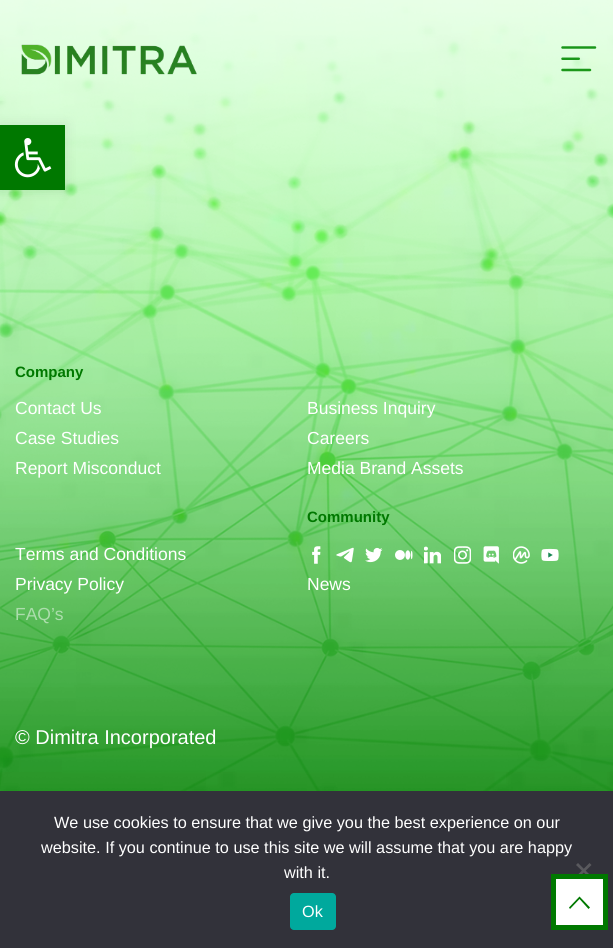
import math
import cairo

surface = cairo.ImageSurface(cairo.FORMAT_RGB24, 613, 948)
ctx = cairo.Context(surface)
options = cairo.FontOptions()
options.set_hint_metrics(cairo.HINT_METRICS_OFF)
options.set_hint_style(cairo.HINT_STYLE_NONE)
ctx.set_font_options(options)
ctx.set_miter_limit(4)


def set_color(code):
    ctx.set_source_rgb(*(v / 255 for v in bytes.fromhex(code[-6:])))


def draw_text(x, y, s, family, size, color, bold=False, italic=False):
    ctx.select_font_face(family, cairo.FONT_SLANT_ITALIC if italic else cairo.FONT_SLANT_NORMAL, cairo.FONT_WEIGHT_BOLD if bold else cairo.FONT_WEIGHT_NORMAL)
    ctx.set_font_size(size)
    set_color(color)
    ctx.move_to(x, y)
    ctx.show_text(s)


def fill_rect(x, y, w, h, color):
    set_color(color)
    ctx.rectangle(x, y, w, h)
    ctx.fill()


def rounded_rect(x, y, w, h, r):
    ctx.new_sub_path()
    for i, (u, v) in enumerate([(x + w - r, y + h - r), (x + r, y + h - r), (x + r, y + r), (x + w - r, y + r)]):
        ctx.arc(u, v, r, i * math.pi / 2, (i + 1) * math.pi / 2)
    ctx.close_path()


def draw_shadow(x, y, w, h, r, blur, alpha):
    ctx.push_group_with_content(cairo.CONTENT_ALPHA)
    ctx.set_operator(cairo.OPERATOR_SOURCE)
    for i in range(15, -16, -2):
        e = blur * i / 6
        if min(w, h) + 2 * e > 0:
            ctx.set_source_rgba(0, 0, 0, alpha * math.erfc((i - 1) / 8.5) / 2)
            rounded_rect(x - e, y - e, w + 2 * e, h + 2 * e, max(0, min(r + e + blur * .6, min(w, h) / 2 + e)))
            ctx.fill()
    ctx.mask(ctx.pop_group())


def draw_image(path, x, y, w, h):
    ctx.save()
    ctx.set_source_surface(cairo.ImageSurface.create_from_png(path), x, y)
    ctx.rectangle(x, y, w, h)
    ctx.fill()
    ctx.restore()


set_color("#ffffff")
ctx.paint()
draw_image("assets/img1.png", 21, 44, 176, 31)
draw_image("assets/img2.png", 561, 46, 36, 26)
draw_image("assets/img4.png", 0, 0, 613, 791)
set_color("#000000")
draw_shadow(0, 125, 65, 65, 0, 6, 0.1)
fill_rect(0, 125, 65, 65, "#007800")
draw_image("assets/img3.png", 14, 138, 38, 40)
draw_text(15, 377, "Company", "Liberation Sans", 15, "#007800", bold=True)
draw_text(15, 414, "Contact Us", "Liberation Sans", 17.5, "#ffffff")
draw_text(15, 444, "Case Studies", "Liberation Sans", 17.5, "#ffffff")
draw_text(15, 474, "Report Misconduct", "Liberation Sans", 17.5, "#ffffff")
draw_text(307, 414, "Business Inquiry", "Liberation Sans", 17.5, "#ffffff")
draw_text(307, 444, "Careers", "Liberation Sans", 17.5, "#ffffff")
draw_text(307, 474, "Media Brand Assets", "Liberation Sans", 17.5, "#ffffff")
draw_text(15, 560, "Terms and Conditions", "Liberation Sans", 17.5, "#ffffff")
draw_text(15, 590, "Privacy Policy", "Liberation Sans", 17.5, "#ffffff")
draw_text(15, 620, "FAQ’s", "Liberation Sans", 17.5, "#acddac")
draw_text(307, 522, "Community", "Liberation Sans", 15, "#007800", bold=True)
draw_image("assets/img5.png", 312, 546, 9, 18)
draw_image("assets/img6.png", 336, 547, 18, 16)
draw_image("assets/img7.png", 365, 547, 18, 16)
draw_image("assets/img8.png", 395, 550, 18, 10)
draw_image("assets/img9.png", 424, 546, 17, 18)
draw_image("assets/img10.png", 454, 546, 17, 18)
draw_image("assets/img11.png", 483, 546, 16, 18)
draw_image("assets/img12.png", 513, 546, 17, 18)
draw_image("assets/img13.png", 541, 548, 18, 13)
draw_text(307, 590, "News", "Liberation Sans", 17.5, "#ffffff")
draw_text(15, 744, "© Dimitra Incorporated", "Liberation Sans", 20, "#ffffff")
fill_rect(0, 791, 613, 157, "#32323a")
draw_text(54, 828, "We use cookies to ensure that we give you the best experience on our", "Liberation Sans", 16.25, "#ffffff")
draw_text(41, 853, "website. If you continue to use this site we will assume that you are happy", "Liberation Sans", 16.25, "#ffffff")
draw_text(284, 878, "with it.", "Liberation Sans", 16.25, "#ffffff")
set_color("#59595d")
ctx.new_path()
ctx.move_to(589.5, 863)
ctx.line_to(591.5, 865)
ctx.line_to(578, 878)
ctx.line_to(576, 876.5)
ctx.close_path()
ctx.fill()
ctx.new_path()
ctx.move_to(576, 865)
ctx.line_to(578, 863)
ctx.line_to(591.5, 876.5)
ctx.line_to(589.5, 878)
ctx.close_path()
ctx.fill()
set_color("#00a99d")
rounded_rect(290, 893, 46, 37, 4)
ctx.fill()
draw_text(302, 917, "Ok", "Liberation Sans", 16.25, "#ffffff")
ctx.rectangle(553.5, 876.5, 52, 51)
ctx.fill_preserve()
set_color("#007800")
ctx.set_line_width(5)
ctx.stroke()
ctx.new_path()
ctx.move_to(588.5, 909)
ctx.line_to(590, 907.5)
ctx.line_to(579.5, 896.5)
ctx.line_to(569, 907.5)
ctx.line_to(570, 909)
ctx.line_to(579.5, 899)
ctx.close_path()
ctx.fill()
surface.write_to_png("output.png")
